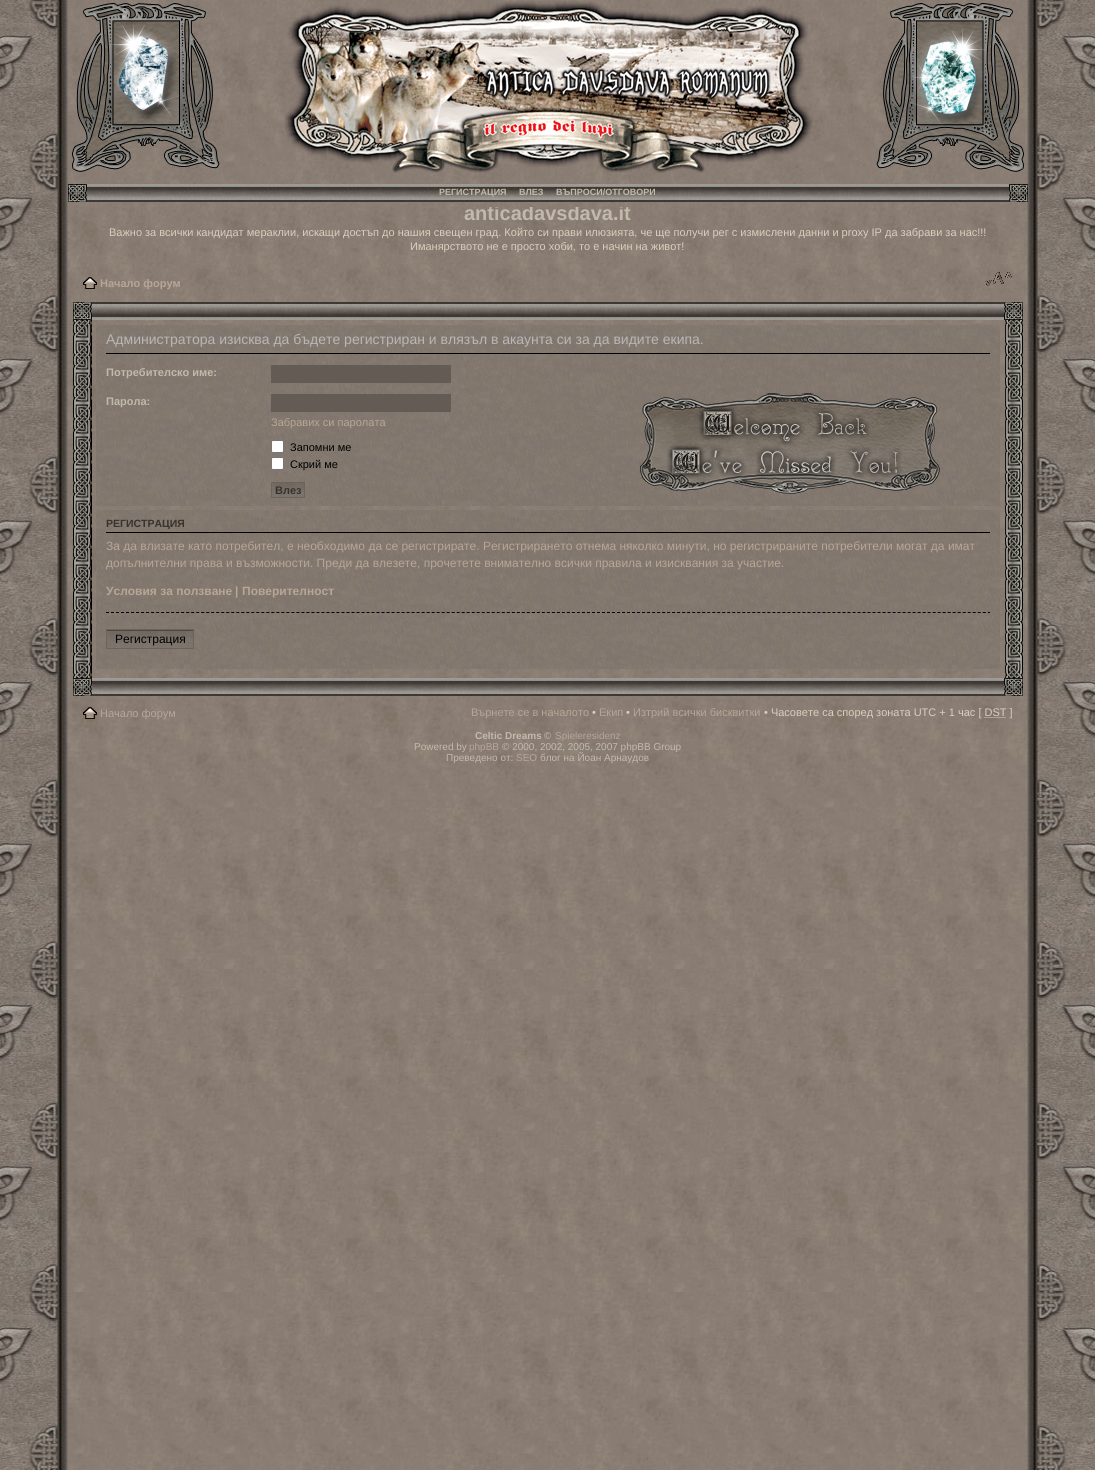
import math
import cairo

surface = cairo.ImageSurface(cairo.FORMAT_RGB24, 1095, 1470)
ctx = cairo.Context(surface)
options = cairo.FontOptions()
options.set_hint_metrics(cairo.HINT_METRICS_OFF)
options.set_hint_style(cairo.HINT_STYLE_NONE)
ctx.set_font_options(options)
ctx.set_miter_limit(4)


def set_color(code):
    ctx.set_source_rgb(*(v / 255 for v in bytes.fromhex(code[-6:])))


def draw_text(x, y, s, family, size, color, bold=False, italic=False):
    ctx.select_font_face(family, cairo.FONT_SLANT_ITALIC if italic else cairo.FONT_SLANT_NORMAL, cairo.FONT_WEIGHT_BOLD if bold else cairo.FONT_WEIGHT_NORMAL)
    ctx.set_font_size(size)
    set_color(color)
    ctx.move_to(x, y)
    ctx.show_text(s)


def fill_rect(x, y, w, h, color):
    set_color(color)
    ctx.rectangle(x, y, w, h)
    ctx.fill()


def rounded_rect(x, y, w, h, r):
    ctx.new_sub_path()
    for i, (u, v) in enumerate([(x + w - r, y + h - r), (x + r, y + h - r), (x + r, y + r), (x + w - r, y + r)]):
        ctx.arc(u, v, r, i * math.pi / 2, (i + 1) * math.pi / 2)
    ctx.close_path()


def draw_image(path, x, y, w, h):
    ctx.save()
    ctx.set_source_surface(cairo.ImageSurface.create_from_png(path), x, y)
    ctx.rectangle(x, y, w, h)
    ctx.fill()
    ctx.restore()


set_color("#ffffff")
ctx.paint()
draw_image("assets/img1.png", 0, 779, 1095, 691)
draw_image("assets/img2.png", 0, 0, 1095, 779)
draw_image("assets/img3.png", 72, 3, 148, 169)
draw_image("assets/img4.png", 284, 1, 529, 172)
draw_image("assets/img5.png", 876, 3, 148, 169)
draw_image("assets/img6.png", 68, 184, 960, 18)
draw_text(439, 195, "РЕГИСТРАЦИЯ", "Liberation Sans", 9, "#c1baaa", bold=True)
draw_text(519, 195, "ВЛЕЗ", "Liberation Sans", 9, "#c1baaa", bold=True)
draw_text(556, 195, "ВЪПРОСИ/ОТГОВОРИ", "Liberation Sans", 9, "#c1baaa", bold=True)
ctx.save()
ctx.rectangle(73, 207, 950, 561)
ctx.clip()
draw_text(464, 220, "anticadavsdava.it", "Liberation Sans", 20, "#c1baaa", bold=True)
ctx.restore()
draw_text(109, 236, "Важно за всички кандидат мераклии, искащи достъп до нашия свещен град. Който си прави илюзията, че ще получи рег с измислени данни и proxy IP да забрави за нас!!!", "Liberation Sans", 11, "#d8cfbc")
draw_text(410, 250, "Иманярството не е просто хоби, то е начин на живот!", "Liberation Sans", 11, "#d8cfbc")
draw_image("assets/img7.png", 83, 277, 14, 12)
draw_text(100, 287, "Начало форум", "Liberation Sans", 11, "#b7a696", bold=True)
draw_image("assets/img8.png", 985, 272, 27, 14)
draw_image("assets/img9.png", 73, 302, 19, 18)
draw_image("assets/img10.png", 92, 302, 912, 18)
draw_image("assets/img11.png", 1004, 302, 19, 18)
draw_image("assets/img12.png", 73, 320, 19, 358)
draw_image("assets/img13.png", 1005, 320, 18, 358)
draw_image("assets/img14.png", 96, 325, 904, 181)
fill_rect(106, 353, 884, 1, "#000000")
draw_text(106, 344, "Администратора изисква да бъдете регистриран и влязъл в акаунта си за да видите екипа.", "Liberation Sans", 14, "#b7b7b7")
draw_text(106, 376, "Потребителско име:", "Liberation Sans", 11, "#c1baaa", bold=True)
set_color("#645c54")
ctx.rectangle(271.5, 365.5, 179, 17)
ctx.fill_preserve()
set_color("#635c56")
ctx.set_line_width(1)
ctx.stroke()
draw_text(106, 405, "Парола:", "Liberation Sans", 11, "#c1baaa", bold=True)
set_color("#645c54")
ctx.rectangle(271.5, 394.5, 179, 17)
ctx.fill_preserve()
set_color("#635c56")
ctx.stroke()
draw_text(271, 426, "Забравих си паролата", "Liberation Sans", 11, "#b7a696")
set_color("#ffffff")
rounded_rect(271.5, 440.5, 12, 12, 1.5)
ctx.fill_preserve()
set_color("#767676")
ctx.stroke()
draw_text(290, 451, "Запомни ме", "Liberation Sans", 11, "#000000")
set_color("#ffffff")
rounded_rect(271.5, 457.5, 12, 12, 1.5)
ctx.fill_preserve()
set_color("#767676")
ctx.stroke()
draw_text(290, 468, "Скрий ме", "Liberation Sans", 11, "#000000")
draw_image("assets/img15.png", 272, 483, 32, 14)
ctx.rectangle(271.5, 482.5, 33, 15)
set_color("#6d6359")
ctx.stroke()
draw_text(275, 494, "Влез", "Liberation Sans", 11, "#38322e", bold=True)
draw_image("assets/img16.png", 640, 393, 300, 101)
draw_image("assets/img17.png", 96, 510, 904, 159)
fill_rect(106, 532, 884, 1, "#000000")
draw_text(106, 527, "РЕГИСТРАЦИЯ", "Liberation Sans", 10.5, "#38322e", bold=True)
draw_text(106, 550, "За да влизате като потребител, е необходимо да се регистрирате. Регистрирането отнема няколко минути, но регистрираните потребители могат да имат", "Liberation Sans", 12, "#b7a696")
ctx.save()
ctx.rectangle(106, 510, 884, 159)
ctx.clip()
draw_text(106, 567, "допълнителни права и възможности. Преди да влезете, прочетете внимателно всички правила и изисквания за участие.", "Liberation Sans", 12, "#b7a696")
ctx.restore()
draw_text(106, 595, "Условия за ползване", "Liberation Sans", 12, "#b7a696", bold=True)
draw_text(235, 595, "|", "Liberation Sans", 12, "#b7a696", bold=True)
draw_text(242, 595, "Поверителност", "Liberation Sans", 12, "#b7a696", bold=True)
ctx.new_path()
ctx.move_to(106, 612.5)
ctx.line_to(990, 612.5)
set_color("#000000")
ctx.set_dash([3, 2.01])
ctx.stroke()
draw_image("assets/img18.png", 107, 631, 86, 17)
fill_rect(107, 630, 86, 1, "#494949")
ctx.rectangle(106.5, 629.5, 87, 19)
set_color("#6d6359")
ctx.set_dash([])
ctx.stroke()
draw_text(115, 643, "Регистрация", "Liberation Sans", 12, "#000000")
draw_image("assets/img19.png", 73, 678, 19, 18)
draw_image("assets/img20.png", 92, 678, 912, 18)
draw_image("assets/img21.png", 1004, 678, 19, 18)
draw_image("assets/img22.png", 83, 707, 14, 12)
draw_text(100, 717, "Начало форум", "Liberation Sans", 11, "#b7a696")
draw_text(471, 716, "Върнете се в началото", "Liberation Sans", 11, "#b7a696")
draw_text(592, 716, "•", "Liberation Sans", 11, "#d8cfbc")
draw_text(599, 716, "Екип", "Liberation Sans", 11, "#b7a696")
draw_text(626, 716, "•", "Liberation Sans", 11, "#d8cfbc")
draw_text(633, 716, "Изтрий всички бисквитки", "Liberation Sans", 11, "#b7a696")
draw_text(764, 716, "• Часовете са според зоната UTC + 1 час [ DST ]", "Liberation Sans", 11, "#d8cfbc")
ctx.new_path()
ctx.move_to(984.5, 717.5)
ctx.line_to(1006.5, 717.5)
ctx.set_dash([1, 1])
ctx.stroke()
draw_text(475, 739, "Celtic Dreams", "Liberation Sans", 10, "#c1baaa", bold=True)
draw_text(544, 739, "©", "Liberation Sans", 10, "#c1baaa")
draw_text(555, 739, "Spieleresidenz", "Liberation Sans", 10, "#b7a696")
draw_text(414, 750, "Powered by", "Liberation Sans", 10, "#c1baaa")
draw_text(469, 750, "phpBB", "Liberation Sans", 10, "#b7a696")
draw_text(502, 750, "© 2000, 2002, 2005, 2007 phpBB Group", "Liberation Sans", 10, "#c1baaa")
draw_text(446, 761, "Преведено от:", "Liberation Sans", 10, "#c1baaa")
draw_text(516, 761, "SEO", "Liberation Sans", 10, "#b7a696")
draw_text(540, 761, "блог на Йоан Арнаудов", "Liberation Sans", 10, "#c1baaa")
surface.write_to_png("output.png")
